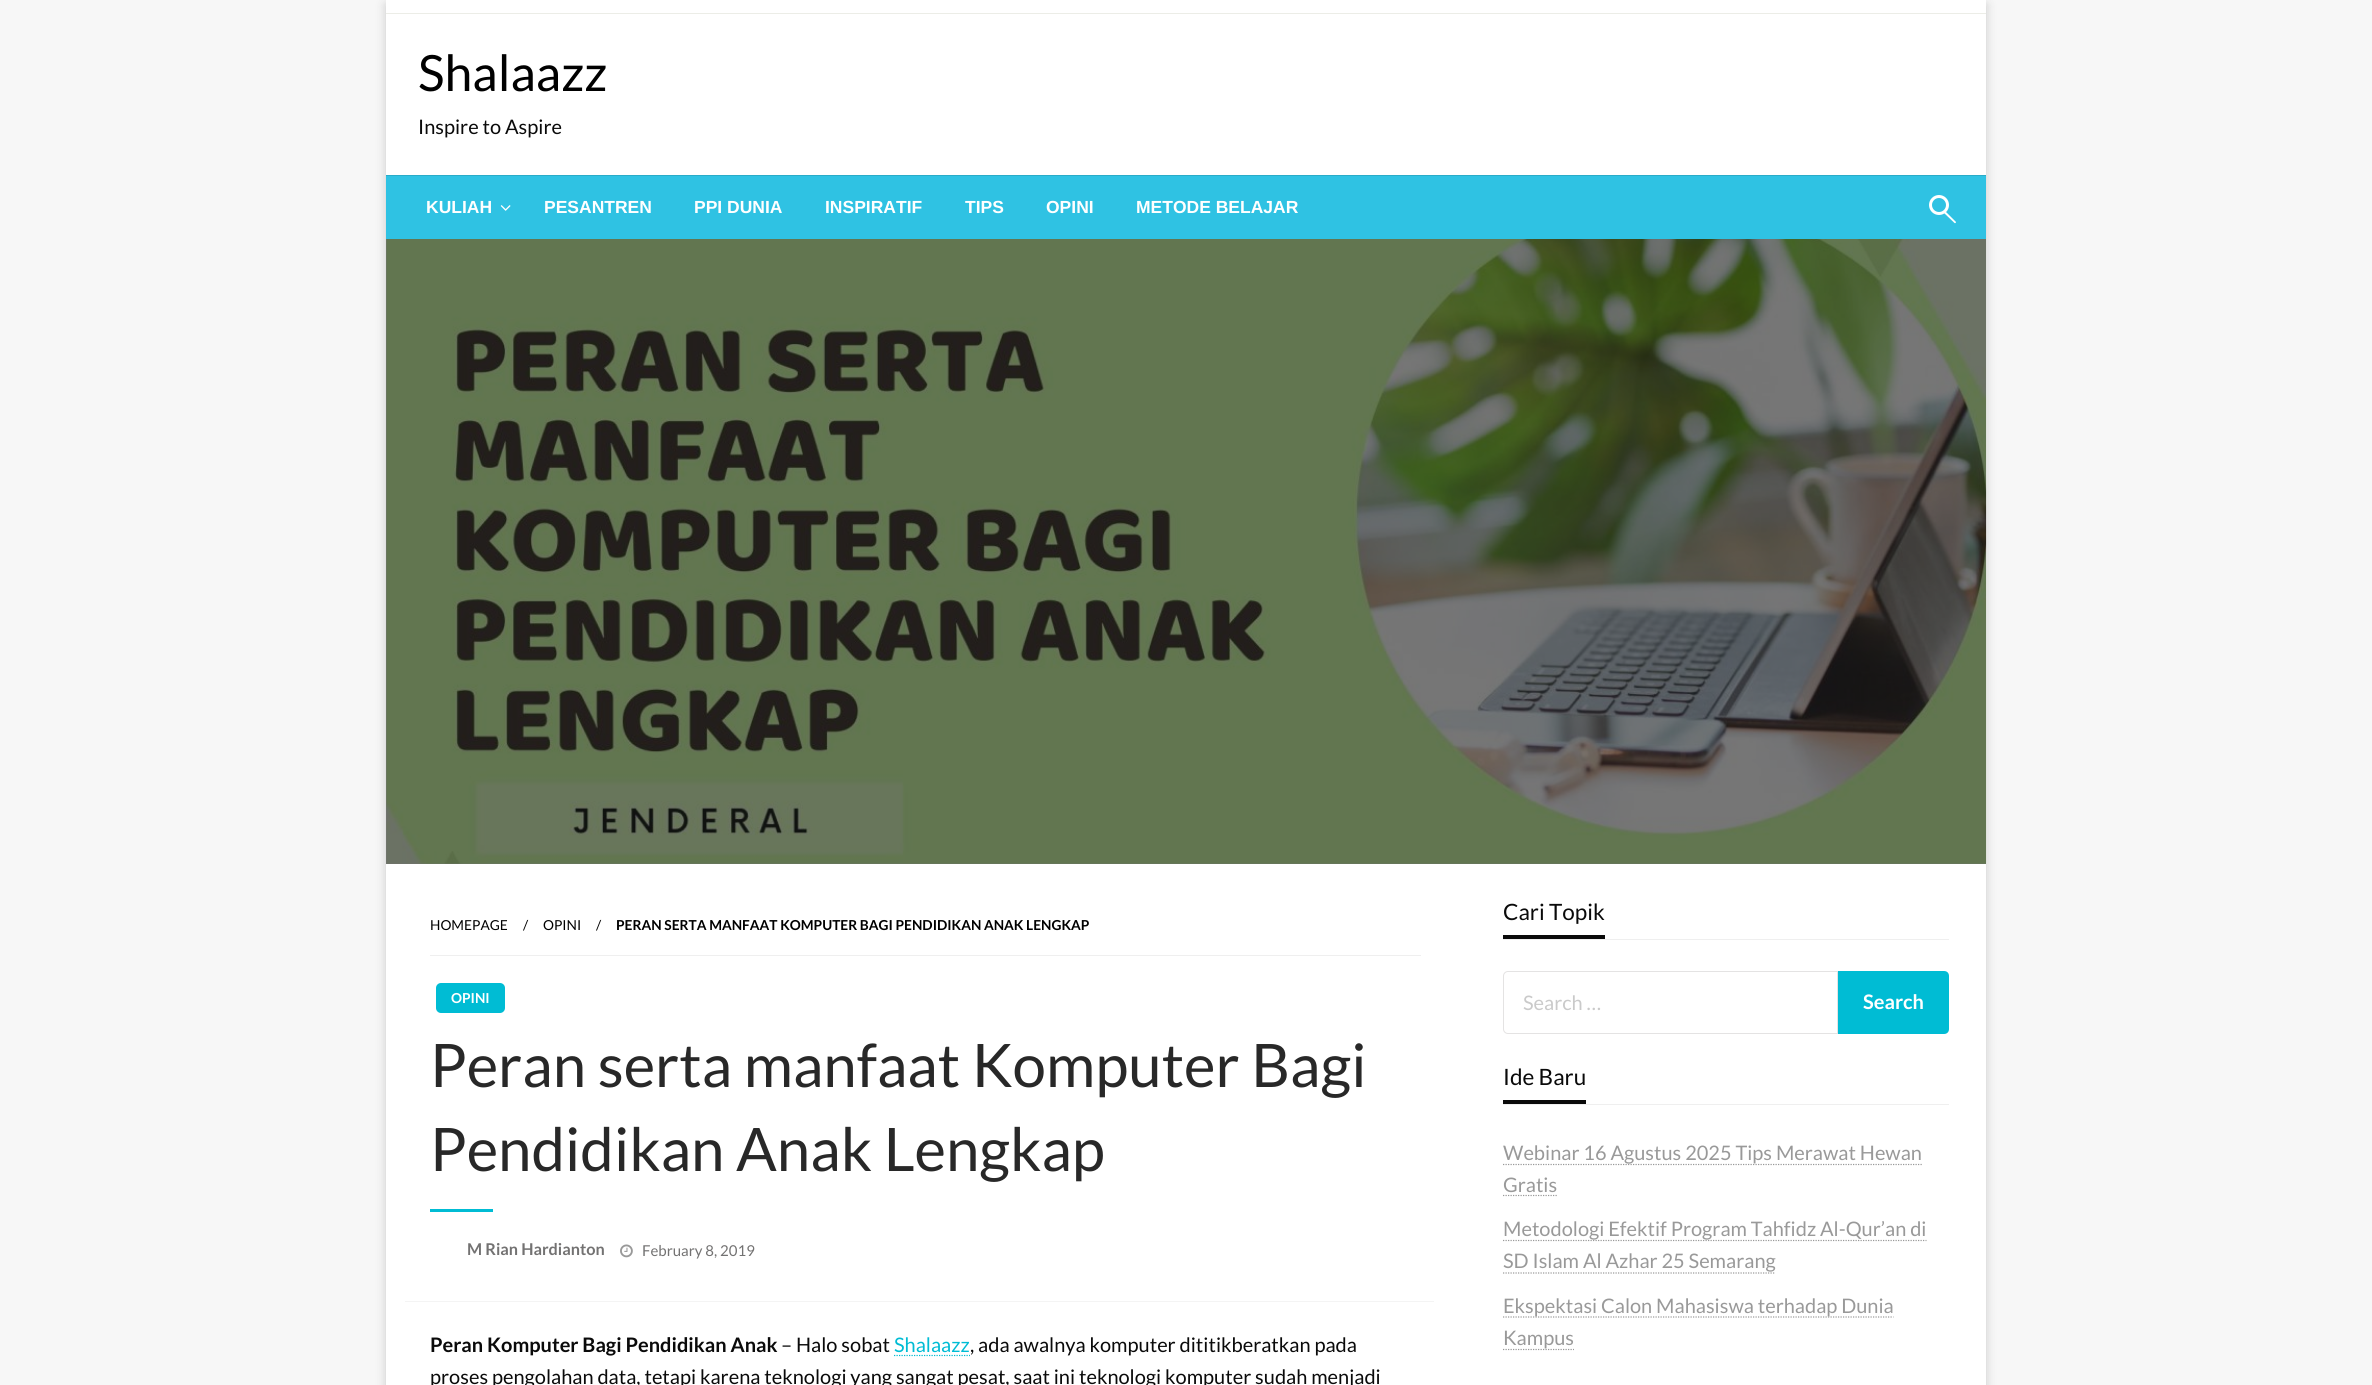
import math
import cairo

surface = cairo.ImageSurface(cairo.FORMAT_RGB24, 2372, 1385)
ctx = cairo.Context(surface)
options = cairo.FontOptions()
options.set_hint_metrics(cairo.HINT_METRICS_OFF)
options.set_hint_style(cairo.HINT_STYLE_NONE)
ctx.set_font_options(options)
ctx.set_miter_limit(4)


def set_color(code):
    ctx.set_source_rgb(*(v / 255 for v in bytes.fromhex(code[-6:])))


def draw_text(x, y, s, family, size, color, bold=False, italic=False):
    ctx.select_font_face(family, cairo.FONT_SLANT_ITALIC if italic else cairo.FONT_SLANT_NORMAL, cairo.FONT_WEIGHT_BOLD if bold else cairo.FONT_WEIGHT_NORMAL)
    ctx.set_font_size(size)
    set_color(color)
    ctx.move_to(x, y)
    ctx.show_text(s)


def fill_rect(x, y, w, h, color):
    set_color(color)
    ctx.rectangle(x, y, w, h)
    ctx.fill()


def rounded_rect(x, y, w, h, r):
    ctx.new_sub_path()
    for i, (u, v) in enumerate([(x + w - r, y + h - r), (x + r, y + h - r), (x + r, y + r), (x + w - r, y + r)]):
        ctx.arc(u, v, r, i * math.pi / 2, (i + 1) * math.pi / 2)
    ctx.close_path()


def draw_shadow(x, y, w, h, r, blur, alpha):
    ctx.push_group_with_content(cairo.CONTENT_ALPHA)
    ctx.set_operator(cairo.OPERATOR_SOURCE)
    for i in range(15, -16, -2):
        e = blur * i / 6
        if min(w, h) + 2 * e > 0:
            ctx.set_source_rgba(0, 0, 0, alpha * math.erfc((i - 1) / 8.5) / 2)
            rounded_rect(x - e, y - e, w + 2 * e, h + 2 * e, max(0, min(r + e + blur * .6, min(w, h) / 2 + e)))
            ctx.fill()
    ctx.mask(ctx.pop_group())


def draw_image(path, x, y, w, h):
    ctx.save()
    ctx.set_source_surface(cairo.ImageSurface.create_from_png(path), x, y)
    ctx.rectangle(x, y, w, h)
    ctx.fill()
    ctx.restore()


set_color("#f7f7f7")
ctx.paint()
set_color("#000000")
draw_shadow(386, 4, 1600, 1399, 0, 6, 0.09)
draw_shadow(386, 5, 1600, 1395, 0, 5, 0.1)
fill_rect(386, 0, 1600, 13, "#ffffff")
fill_rect(386, 13, 1600, 1, "#ecede7")
fill_rect(386, 14, 1600, 161, "#ffffff")
draw_text(418, 91, "Shalaazz", "Lato", 50, "#000000")
draw_text(418, 134, "Inspire to Aspire", "Lato", 20, "#0a0a0a")
fill_rect(386, 176, 1600, 63, "#2fc2e3")
fill_rect(386, 175, 1600, 1, "#29abc8")
draw_text(426, 213, "KULIAH", "Liberation Sans", 17.5, "#ffffff", bold=True)
draw_image("assets/img1.png", 500, 205, 11, 6)
draw_text(544, 213, "PESANTREN", "Liberation Sans", 17.5, "#ffffff", bold=True)
draw_text(694, 213, "PPI DUNIA", "Liberation Sans", 17.5, "#ffffff", bold=True)
draw_text(825, 213, "INSPIRATIF", "Liberation Sans", 17.5, "#ffffff", bold=True)
draw_text(965, 213, "TIPS", "Liberation Sans", 17.5, "#ffffff", bold=True)
draw_text(1046, 213, "OPINI", "Liberation Sans", 17.5, "#ffffff", bold=True)
draw_text(1136, 213, "METODE BELAJAR", "Liberation Sans", 17.5, "#ffffff", bold=True)
ctx.new_path()
ctx.arc(1939, 205, 8.5, 0, 2 * math.pi)
ctx.set_line_width(3)
ctx.stroke()
ctx.new_path()
ctx.move_to(1945.5, 211.5)
ctx.line_to(1956, 222)
ctx.curve_to(1956, 223, 1955, 223.5, 1954.5, 223)
ctx.line_to(1944, 213)
ctx.curve_to(1943, 212, 1944.5, 210.5, 1945.5, 211.5)
ctx.close_path()
ctx.fill()
fill_rect(386, 239, 1600, 1146, "#ffffff")
draw_image("assets/img2.png", 386, 239, 1601, 625)
ctx.set_source_rgba(0.11, 0.11, 0.11, 0.6)
ctx.rectangle(386, 239, 1600, 625)
ctx.fill()
fill_rect(405, 1301, 1029, 1, "#f4f4f4")
fill_rect(430, 955, 991, 1, "#efefef")
draw_text(430, 930, "HOMEPAGE", "Lato", 13.75, "#000000")
draw_text(523, 930, "/", "Lato", 13.75, "#000000")
draw_text(543, 930, "OPINI", "Lato", 13.75, "#000000")
draw_text(596, 930, "/", "Lato", 13.75, "#000000")
draw_text(616, 930, "PERAN SERTA MANFAAT KOMPUTER BAGI PENDIDIKAN ANAK LENGKAP", "Lato", 13.75, "#000000", bold=True)
set_color("#00bcd4")
rounded_rect(436, 983, 69, 30, 5)
ctx.fill()
draw_text(451, 1003, "OPINI", "Lato", 13.75, "#ffffff", bold=True)
draw_text(430, 1087, "Peran serta manfaat Komputer Bagi", "Lato", 60, "#282828")
draw_text(430, 1171, "Pendidikan Anak Lengkap", "Lato", 60, "#282828")
fill_rect(430, 1209, 63, 3, "#00bcd4")
draw_text(467, 1255, "M Rian Hardianton", "Lato", 16.25, "#737272", bold=True)
draw_image("assets/img3.png", 620, 1244, 13, 14)
draw_text(642, 1256, "February 8, 2019", "Lato", 15, "#737272")
draw_text(430, 1352, "Peran Komputer Bagi Pendidikan Anak", "Lato", 20, "#0a0a0a", bold=True)
draw_text(781, 1352, "– Halo sobat", "Lato", 20, "#0a0a0a")
draw_text(894, 1352, "Shalaazz", "Lato", 20, "#00bcd4")
ctx.new_path()
ctx.move_to(894, 1355.5)
ctx.line_to(970, 1355.5)
ctx.set_line_width(1.2)
ctx.set_dash([1.25, 1.25])
ctx.stroke()
draw_text(970, 1352, ", ada awalnya komputer dititikberatkan pada", "Lato", 20, "#0a0a0a")
draw_text(430, 1384, "proses pengolahan data, tetapi karena teknologi yang sangat pesat, saat ini teknologi komputer sudah menjadi", "Lato", 20, "#0a0a0a")
fill_rect(1503, 939, 446, 1, "#efefef")
fill_rect(1503, 935, 102, 4, "#0a0a0a")
draw_text(1503, 920, "Cari Topik", "Lato", 22.5, "#0a0a0a")
ctx.new_path()
ctx.move_to(1508, 971.5)
ctx.line_to(1837.5, 971.5)
ctx.line_to(1837.5, 1033.5)
ctx.line_to(1508, 1033.5)
ctx.curve_to(1505.5, 1033.5, 1503.5, 1031.5, 1503.5, 1029)
ctx.line_to(1503.5, 976)
ctx.curve_to(1503.5, 973.5, 1505.5, 971.5, 1508, 971.5)
ctx.close_path()
set_color("#e4e3e3")
ctx.set_line_width(1)
ctx.set_dash([])
ctx.stroke()
draw_text(1523, 1010, "Search …", "Lato", 20, "#cacaca")
set_color("#00bcd4")
ctx.new_path()
ctx.move_to(1838, 971)
ctx.line_to(1944, 971)
ctx.curve_to(1947, 971, 1949, 973, 1949, 976)
ctx.line_to(1949, 1029)
ctx.curve_to(1949, 1032, 1947, 1034, 1944, 1034)
ctx.line_to(1838, 1034)
ctx.close_path()
ctx.fill()
draw_text(1863, 1009, "Search", "Lato", 20, "#ffffff", bold=True)
fill_rect(1503, 1104, 446, 1, "#efefef")
fill_rect(1503, 1100, 83, 4, "#0a0a0a")
draw_text(1503, 1085, "Ide Baru", "Lato", 22.5, "#0a0a0a")
ctx.new_path()
ctx.move_to(1503, 1164.5)
ctx.line_to(1922, 1164.5)
set_color("#999999")
ctx.set_line_width(1.2)
ctx.set_dash([1.25, 1.25])
ctx.stroke()
draw_text(1503, 1160, "Webinar 16 Agustus 2025 Tips Merawat Hewan", "Lato", 20, "#999999")
draw_text(1503, 1192, "Gratis", "Lato", 20, "#999999")
ctx.new_path()
ctx.move_to(1503, 1195.5)
ctx.line_to(1557, 1195.5)
ctx.stroke()
ctx.new_path()
ctx.move_to(1503, 1240.5)
ctx.line_to(1926.5, 1240.5)
ctx.stroke()
draw_text(1503, 1236, "Metodologi Efektif Program Tahfidz Al-Qur’an di", "Lato", 20, "#999999")
draw_text(1503, 1268, "SD Islam Al Azhar 25 Semarang", "Lato", 20, "#999999")
ctx.new_path()
ctx.move_to(1503, 1273)
ctx.line_to(1775.5, 1273)
ctx.stroke()
ctx.new_path()
ctx.move_to(1503, 1317)
ctx.line_to(1893.5, 1317)
ctx.stroke()
draw_text(1503, 1313, "Ekspektasi Calon Mahasiswa terhadap Dunia", "Lato", 20, "#999999")
ctx.new_path()
ctx.move_to(1503, 1349.5)
ctx.line_to(1574, 1349.5)
ctx.stroke()
draw_text(1503, 1345, "Kampus", "Lato", 20, "#999999")
surface.write_to_png("output.png")
